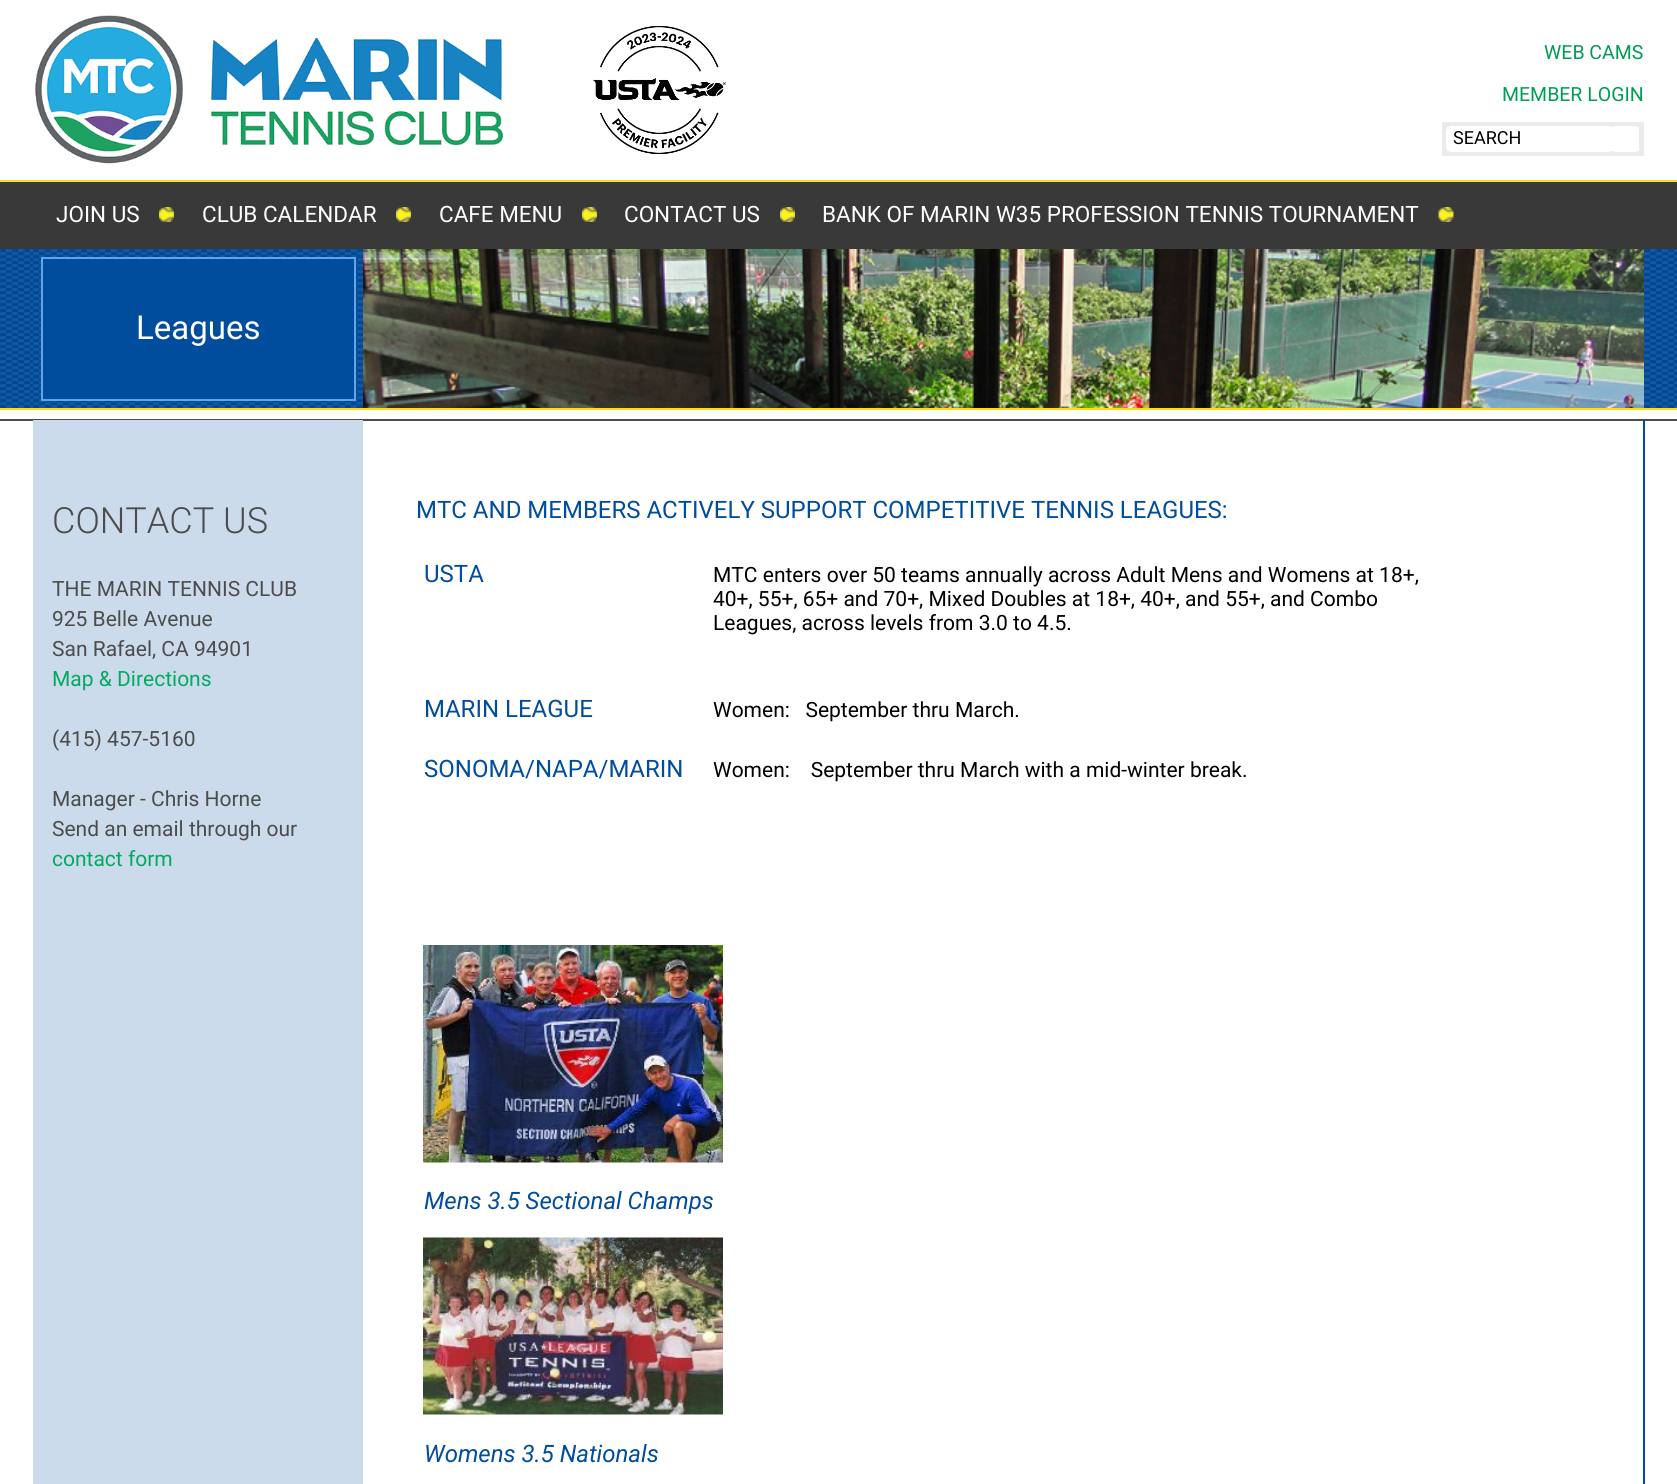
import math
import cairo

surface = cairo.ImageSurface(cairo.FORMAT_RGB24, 1677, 1484)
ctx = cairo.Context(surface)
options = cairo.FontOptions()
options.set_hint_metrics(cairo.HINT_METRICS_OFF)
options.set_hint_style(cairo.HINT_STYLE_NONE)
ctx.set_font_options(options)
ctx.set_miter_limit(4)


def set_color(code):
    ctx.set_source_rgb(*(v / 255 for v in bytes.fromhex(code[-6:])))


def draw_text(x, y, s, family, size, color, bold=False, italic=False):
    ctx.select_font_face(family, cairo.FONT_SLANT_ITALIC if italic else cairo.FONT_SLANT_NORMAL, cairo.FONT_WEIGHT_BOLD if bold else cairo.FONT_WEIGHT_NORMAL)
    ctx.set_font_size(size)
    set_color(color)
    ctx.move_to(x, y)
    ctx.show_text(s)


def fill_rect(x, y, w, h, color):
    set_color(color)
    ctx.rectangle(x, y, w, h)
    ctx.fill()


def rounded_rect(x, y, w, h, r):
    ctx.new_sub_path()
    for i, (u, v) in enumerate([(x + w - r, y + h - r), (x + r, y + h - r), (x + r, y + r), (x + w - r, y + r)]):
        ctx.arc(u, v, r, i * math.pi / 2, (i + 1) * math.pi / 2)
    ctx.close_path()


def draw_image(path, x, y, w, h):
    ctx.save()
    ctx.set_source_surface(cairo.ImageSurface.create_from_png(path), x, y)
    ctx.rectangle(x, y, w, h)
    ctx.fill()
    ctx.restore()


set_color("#ffffff")
ctx.paint()
draw_image("assets/img1.png", 35, 15, 469, 149)
draw_image("assets/img2.png", 593, 26, 133, 128)
draw_text(1544, 59, "WEB CAMS", "Roboto", 19.5, "#019c56")
draw_text(1502, 101, "MEMBER LOGIN", "Roboto", 19.5, "#019c56")
ctx.rectangle(1444.5, 124.5, 197, 29)
set_color("#ebebeb")
ctx.set_line_width(5)
ctx.stroke()
set_color("#ffffff")
rounded_rect(1446, 126, 168, 26, 6)
ctx.fill()
draw_text(1453, 144, "SEARCH", "Roboto", 18, "#000000")
fill_rect(1614, 126, 23, 26, "#ffffff")
fill_rect(0, 182, 1677, 67, "#393939")
fill_rect(0, 180, 1677, 2, "#fbdd31")
draw_image("assets/img3.png", 159, 207, 15, 15)
draw_text(56, 222, "JOIN US", "Roboto", 22.5, "#ffffff")
draw_image("assets/img4.png", 396, 207, 15, 15)
draw_text(202, 222, "CLUB CALENDAR", "Roboto", 22.5, "#ffffff")
draw_image("assets/img4.png", 582, 207, 15, 15)
draw_text(439, 222, "CAFE MENU", "Roboto", 22.5, "#ffffff")
draw_image("assets/img3.png", 780, 207, 15, 15)
draw_text(624, 222, "CONTACT US", "Roboto", 22.5, "#ffffff")
draw_image("assets/img5.png", 1438, 207, 16, 15)
draw_text(822, 222, "BANK OF MARIN W35 PROFESSION TENNIS TOURNAMENT", "Roboto", 22.5, "#ffffff")
draw_image("assets/img6.png", 0, 249, 1677, 159)
fill_rect(0, 408, 1677, 2, "#ffe100")
draw_image("assets/img7.png", 33, 249, 327, 159)
set_color("#004c9d")
ctx.rectangle(42, 258, 313, 142)
ctx.fill_preserve()
set_color("#60a4ec")
ctx.set_line_width(2)
ctx.stroke()
draw_text(136, 339, "Leagues", "Roboto", 33, "#ffffff")
draw_image("assets/img8.png", 363, 249, 1281, 159)
fill_rect(0, 419, 1677, 2, "#4e4c4c")
fill_rect(33, 420, 330, 1064, "#ccdbeb")
draw_text(52, 533, "CONTACT US", "Roboto Light", 36, "#4d4c4c")
draw_text(52, 596, "THE MARIN TENNIS CLUB", "Roboto", 21, "#4d4c4c")
draw_text(52, 626, "925 Belle Avenue", "Roboto", 21, "#4d4c4c")
draw_text(52, 656, "San Rafael, CA 94901", "Roboto", 21, "#4d4c4c")
draw_text(52, 686, "Map & Directions", "Roboto", 21, "#00ab5e")
draw_text(52, 746, "(415) 457-5160", "Roboto", 21, "#4d4c4c")
draw_text(52, 806, "Manager - Chris Horne", "Roboto", 21, "#4d4c4c")
draw_text(52, 836, "Send an email through our", "Roboto", 21, "#4d4c4c")
draw_text(52, 866, "contact form", "Roboto", 21, "#00ab5e")
fill_rect(1643, 420, 2, 1064, "#004c9d")
draw_text(416, 518, "MTC AND MEMBERS ACTIVELY SUPPORT COMPETITIVE TENNIS LEAGUES:", "Roboto", 24, "#004c9d")
draw_text(424, 582, "USTA", "Roboto", 24, "#004c9d")
draw_text(713, 582, "MTC enters over 50 teams annually across Adult Mens and Womens at 18+,", "Roboto", 21, "#000000")
draw_text(713, 606, "40+, 55+, 65+ and 70+, Mixed Doubles at 18+, 40+, and 55+, and Combo", "Roboto", 21, "#000000")
draw_text(713, 630, "Leagues, across levels from 3.0 to 4.5.", "Roboto", 21, "#000000")
draw_text(424, 717, "MARIN LEAGUE", "Roboto", 24, "#004c9d")
draw_text(713, 717, "Women:   September thru March.", "Roboto", 21, "#000000")
draw_text(424, 777, "SONOMA/NAPA/MARIN", "Roboto", 24, "#004c9d")
draw_text(713, 777, "Women:    September thru March with a mid-winter break.", "Roboto", 21, "#000000")
draw_image("assets/img9.png", 423, 945, 300, 218)
draw_text(424, 1209, "Mens 3.5 Sectional Champs", "Roboto", 24, "#004c9d", italic=True)
draw_image("assets/img10.png", 423, 1237, 300, 178)
draw_text(424, 1462, "Womens 3.5 Nationals", "Roboto", 24, "#004c9d", italic=True)
surface.write_to_png("output.png")
